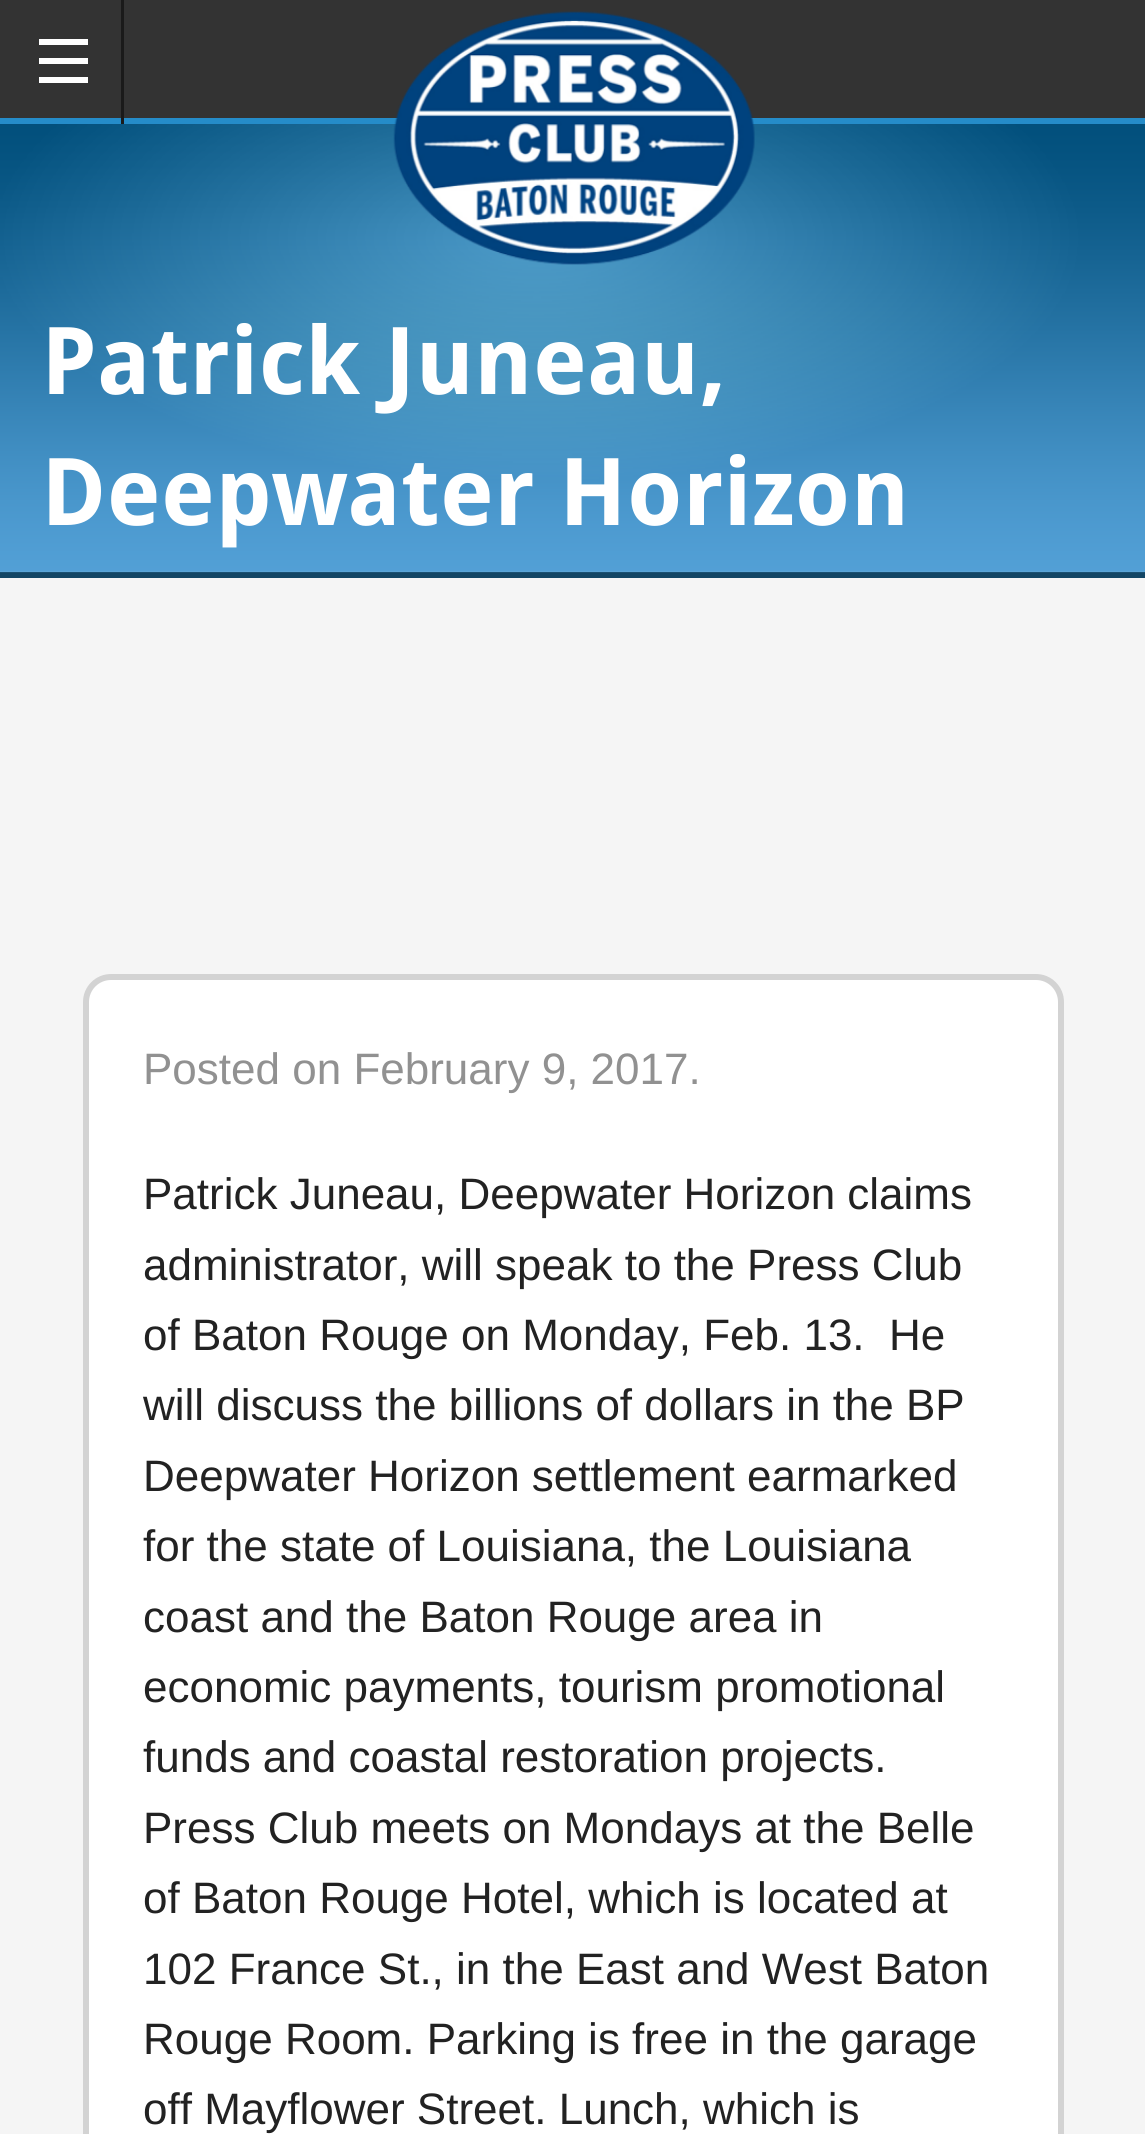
import math
import cairo

surface = cairo.ImageSurface(cairo.FORMAT_RGB24, 1145, 2134)
ctx = cairo.Context(surface)
options = cairo.FontOptions()
options.set_hint_metrics(cairo.HINT_METRICS_OFF)
options.set_hint_style(cairo.HINT_STYLE_NONE)
ctx.set_font_options(options)
ctx.set_miter_limit(4)


def set_color(code):
    ctx.set_source_rgb(*(v / 255 for v in bytes.fromhex(code[-6:])))


def draw_text(x, y, s, family, size, color, bold=False, italic=False):
    ctx.select_font_face(family, cairo.FONT_SLANT_ITALIC if italic else cairo.FONT_SLANT_NORMAL, cairo.FONT_WEIGHT_BOLD if bold else cairo.FONT_WEIGHT_NORMAL)
    ctx.set_font_size(size)
    set_color(color)
    ctx.move_to(x, y)
    ctx.show_text(s)


def fill_rect(x, y, w, h, color):
    set_color(color)
    ctx.rectangle(x, y, w, h)
    ctx.fill()


def rounded_rect(x, y, w, h, r):
    ctx.new_sub_path()
    for i, (u, v) in enumerate([(x + w - r, y + h - r), (x + r, y + h - r), (x + r, y + r), (x + w - r, y + r)]):
        ctx.arc(u, v, r, i * math.pi / 2, (i + 1) * math.pi / 2)
    ctx.close_path()


def draw_image(path, x, y, w, h):
    ctx.save()
    ctx.set_source_surface(cairo.ImageSurface.create_from_png(path), x, y)
    ctx.rectangle(x, y, w, h)
    ctx.fill()
    ctx.restore()


set_color("#f5f5f5")
ctx.paint()
fill_rect(0, 0, 1145, 118, "#333333")
fill_rect(0, 118, 1145, 6, "#258cc9")
fill_rect(121, 0, 3, 124, "#1a1a1a")
fill_rect(39, 77, 49, 6, "#ffffff")
fill_rect(39, 58, 49, 6, "#ffffff")
fill_rect(39, 39, 49, 6, "#ffffff")
fill_rect(0, 572, 1145, 6, "#134665")
draw_image("assets/img2.png", 0, 124, 1145, 449)
draw_image("assets/img1.png", 393, 11, 362, 254)
draw_text(41, 394, "Patrick Juneau,", "Droid Sans", 93.5, "#ffffff", bold=True)
draw_text(41, 525, "Deepwater Horizon", "Droid Sans", 93.5, "#ffffff", bold=True)
rounded_rect(86, 977, 975, 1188, 25)
ctx.fill_preserve()
set_color("#d3d3d3")
ctx.set_line_width(6)
ctx.stroke()
draw_text(143, 1084, "Posted on February 9, 2017.", "Liberation Sans", 44, "#919191")
draw_text(143, 1209, "Patrick Juneau, Deepwater Horizon claims", "Liberation Sans", 44, "#222222")
draw_text(143, 1280, "administrator, will speak to the Press Club", "Liberation Sans", 44, "#222222")
draw_text(143, 1350, "of Baton Rouge on Monday, Feb. 13.  He", "Liberation Sans", 44, "#222222")
draw_text(143, 1420, "will discuss the billions of dollars in the BP", "Liberation Sans", 44, "#222222")
draw_text(143, 1491, "Deepwater Horizon settlement earmarked", "Liberation Sans", 44, "#222222")
draw_text(143, 1561, "for the state of Louisiana, the Louisiana", "Liberation Sans", 44, "#222222")
draw_text(143, 1632, "coast and the Baton Rouge area in", "Liberation Sans", 44, "#222222")
draw_text(143, 1702, "economic payments, tourism promotional", "Liberation Sans", 44, "#222222")
draw_text(143, 1772, "funds and coastal restoration projects.", "Liberation Sans", 44, "#222222")
draw_text(143, 1843, "Press Club meets on Mondays at the Belle", "Liberation Sans", 44, "#222222")
draw_text(143, 1913, "of Baton Rouge Hotel, which is located at", "Liberation Sans", 44, "#222222")
draw_text(143, 1984, "102 France St., in the East and West Baton", "Liberation Sans", 44, "#222222")
draw_text(143, 2054, "Rouge Room. Parking is free in the garage", "Liberation Sans", 44, "#222222")
draw_text(143, 2124, "off Mayflower Street. Lunch, which is", "Liberation Sans", 44, "#222222")
surface.write_to_png("output.png")
